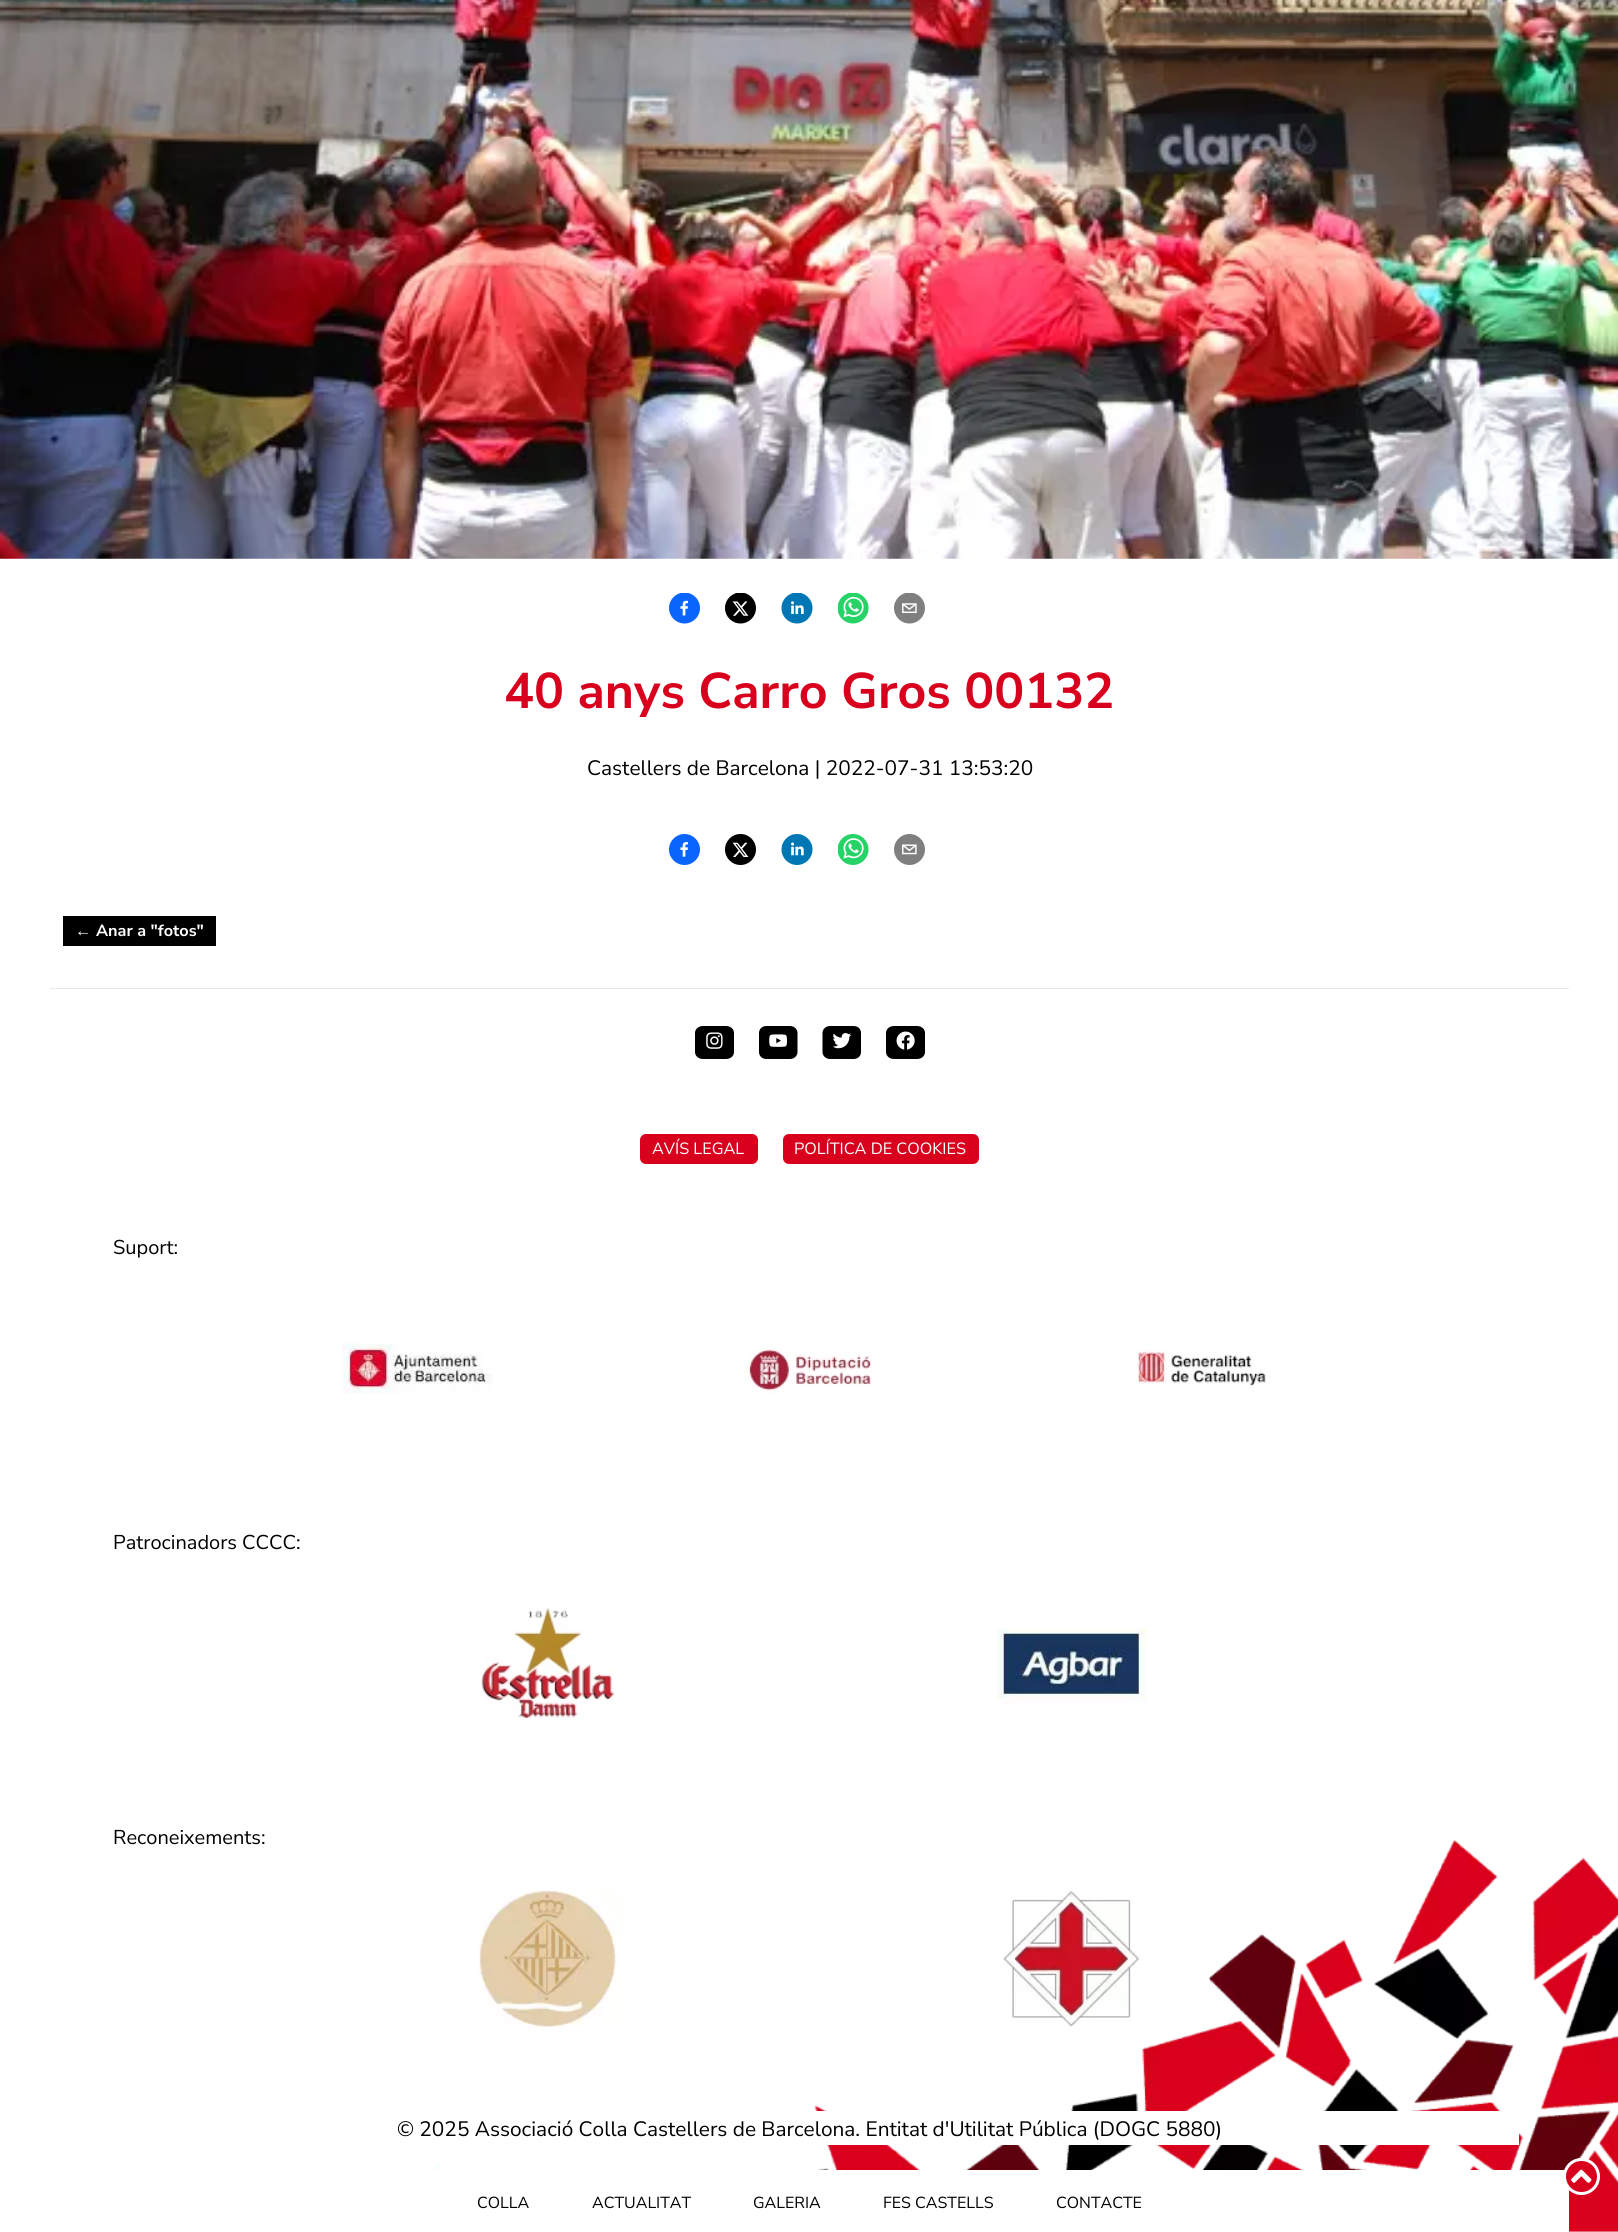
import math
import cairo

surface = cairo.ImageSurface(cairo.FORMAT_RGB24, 1618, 2232)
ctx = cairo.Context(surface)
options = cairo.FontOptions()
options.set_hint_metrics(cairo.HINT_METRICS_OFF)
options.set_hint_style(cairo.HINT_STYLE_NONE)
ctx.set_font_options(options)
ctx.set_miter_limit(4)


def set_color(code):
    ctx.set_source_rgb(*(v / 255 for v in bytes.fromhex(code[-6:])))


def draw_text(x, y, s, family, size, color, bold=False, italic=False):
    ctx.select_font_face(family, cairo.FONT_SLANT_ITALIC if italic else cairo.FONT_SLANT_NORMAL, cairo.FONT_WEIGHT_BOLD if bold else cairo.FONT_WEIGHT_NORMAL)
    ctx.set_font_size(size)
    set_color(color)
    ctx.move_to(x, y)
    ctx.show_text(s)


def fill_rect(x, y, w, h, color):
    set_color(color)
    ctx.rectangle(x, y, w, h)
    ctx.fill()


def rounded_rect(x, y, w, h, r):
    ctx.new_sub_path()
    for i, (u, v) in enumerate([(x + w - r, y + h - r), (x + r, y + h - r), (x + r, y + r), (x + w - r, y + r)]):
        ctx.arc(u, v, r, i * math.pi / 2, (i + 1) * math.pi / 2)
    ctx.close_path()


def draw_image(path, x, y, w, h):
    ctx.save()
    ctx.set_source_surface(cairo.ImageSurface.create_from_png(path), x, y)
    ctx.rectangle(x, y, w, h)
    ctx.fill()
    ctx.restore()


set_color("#ffffff")
ctx.paint()
draw_image("assets/img1.png", 412, 1840, 1206, 392)
draw_image("assets/img2.png", 0, 0, 1618, 559)
draw_image("assets/img3.png", 669, 593, 31, 31)
draw_image("assets/img4.png", 725, 593, 31, 31)
draw_image("assets/img5.png", 781, 593, 32, 31)
draw_image("assets/img6.png", 838, 593, 31, 31)
draw_image("assets/img7.png", 894, 593, 31, 31)
draw_text(504, 708, "40 anys Carro Gros 00132", "Nunito Sans", 50, "#d9001d", bold=True)
draw_text(587, 775, "Castellers de Barcelona | 2022-07-31 13:53:20", "Nunito Sans", 20.85, "#000000")
draw_image("assets/img8.png", 669, 834, 31, 31)
draw_image("assets/img9.png", 725, 834, 31, 31)
draw_image("assets/img10.png", 781, 834, 32, 31)
draw_image("assets/img11.png", 838, 834, 31, 31)
draw_image("assets/img12.png", 894, 834, 31, 31)
fill_rect(63, 916, 153, 30, "#000000")
draw_text(75, 936, "←", "Liberation Sans", 16.25, "#ffffff", bold=True)
draw_text(96, 936, "Anar a \"fotos\"", "Nunito Sans", 16.25, "#ffffff", bold=True)
fill_rect(50, 988, 1519, 1, "#eaeaea")
set_color("#000000")
ctx.new_path()
ctx.move_to(703, 1026)
ctx.line_to(726, 1026)
ctx.curve_to(730.5, 1026, 734, 1029, 734, 1033)
ctx.line_to(734, 1052)
ctx.curve_to(734, 1056, 730.5, 1059, 726, 1059)
ctx.line_to(703, 1059)
ctx.curve_to(698.5, 1059, 695, 1056, 695, 1052)
ctx.line_to(695, 1033)
ctx.curve_to(695, 1029, 698.5, 1026, 703, 1026)
ctx.close_path()
ctx.fill()
draw_image("assets/img13.png", 706, 1032, 17, 17)
ctx.new_path()
ctx.move_to(766.5, 1026)
ctx.line_to(790, 1026)
ctx.curve_to(794, 1026, 797.5, 1029, 797.5, 1033)
ctx.line_to(797.5, 1052)
ctx.curve_to(797.5, 1056, 794, 1059, 790, 1059)
ctx.line_to(766.5, 1059)
ctx.curve_to(762, 1059, 759, 1056, 759, 1052)
ctx.line_to(759, 1033)
ctx.curve_to(759, 1029, 762, 1026, 766.5, 1026)
ctx.close_path()
ctx.fill()
draw_image("assets/img14.png", 769, 1034, 18, 13)
ctx.new_path()
ctx.move_to(830, 1026)
ctx.line_to(853.5, 1026)
ctx.curve_to(858, 1026, 861, 1029, 861, 1033)
ctx.line_to(861, 1052)
ctx.curve_to(861, 1056, 858, 1059, 853.5, 1059)
ctx.line_to(830, 1059)
ctx.curve_to(826, 1059, 822.5, 1056, 822.5, 1052)
ctx.line_to(822.5, 1033)
ctx.curve_to(822.5, 1029, 826, 1026, 830, 1026)
ctx.close_path()
ctx.fill()
draw_image("assets/img15.png", 833, 1033, 18, 16)
ctx.new_path()
ctx.move_to(894, 1026)
ctx.line_to(917, 1026)
ctx.curve_to(921.5, 1026, 925, 1029, 925, 1033)
ctx.line_to(925, 1052)
ctx.curve_to(925, 1056, 921.5, 1059, 917, 1059)
ctx.line_to(894, 1059)
ctx.curve_to(889.5, 1059, 886, 1056, 886, 1052)
ctx.line_to(886, 1033)
ctx.curve_to(886, 1029, 889.5, 1026, 894, 1026)
ctx.close_path()
ctx.fill()
draw_image("assets/img16.png", 896, 1031, 19, 19)
set_color("#d9001d")
rounded_rect(640, 1134, 118, 30, 6)
ctx.fill()
draw_text(652, 1154, "AVÍS LEGAL", "Nunito Sans", 16.25, "#ffffff")
set_color("#d9001d")
rounded_rect(783, 1134, 196, 30, 6)
ctx.fill()
draw_text(794, 1154, "POLÍTICA DE COOKIES", "Nunito Sans", 16.25, "#ffffff")
draw_text(113, 1254, "Suport:", "Nunito Sans", 20, "#000000")
draw_image("assets/img17.png", 342, 1343, 151, 51)
draw_image("assets/img18.png", 745, 1349, 127, 45)
draw_image("assets/img19.png", 1136, 1349, 130, 37)
draw_text(113, 1549, "Patrocinadors CCCC:", "Nunito Sans", 20, "#000000")
draw_image("assets/img20.png", 481, 1607, 134, 112)
draw_image("assets/img21.png", 996, 1628, 151, 76)
draw_text(113, 1844, "Reconeixements:", "Nunito Sans", 20, "#000000")
draw_image("assets/img22.png", 479, 1890, 143, 138)
draw_image("assets/img23.png", 1003, 1891, 136, 136)
fill_rect(815, 2111, 704, 34, "#ffffff")
draw_text(397, 2136, "© 2025 Associació Colla Castellers de Barcelona. Entitat d'Utilitat Pública (DOGC 5880)", "Nunito Sans", 20.85, "#000000")
fill_rect(412, 2170, 1157, 62, "#ffffff")
draw_text(477, 2208, "COLLA", "Nunito Sans", 16, "#000000")
draw_text(592, 2208, "ACTUALITAT", "Nunito Sans", 16, "#000000")
draw_text(753, 2208, "GALERIA", "Nunito Sans", 16, "#000000")
draw_text(883, 2208, "FES CASTELLS", "Nunito Sans", 16, "#000000")
draw_text(1056, 2208, "CONTACTE", "Nunito Sans", 16, "#000000")
set_color("#d9001d")
ctx.new_path()
ctx.arc(1581.5, 2176.5, 17, 0, 2 * math.pi)
ctx.fill_preserve()
set_color("#ffffff")
ctx.set_line_width(3)
ctx.stroke()
draw_image("assets/img24.png", 1571, 2169, 21, 14)
surface.write_to_png("output.png")
